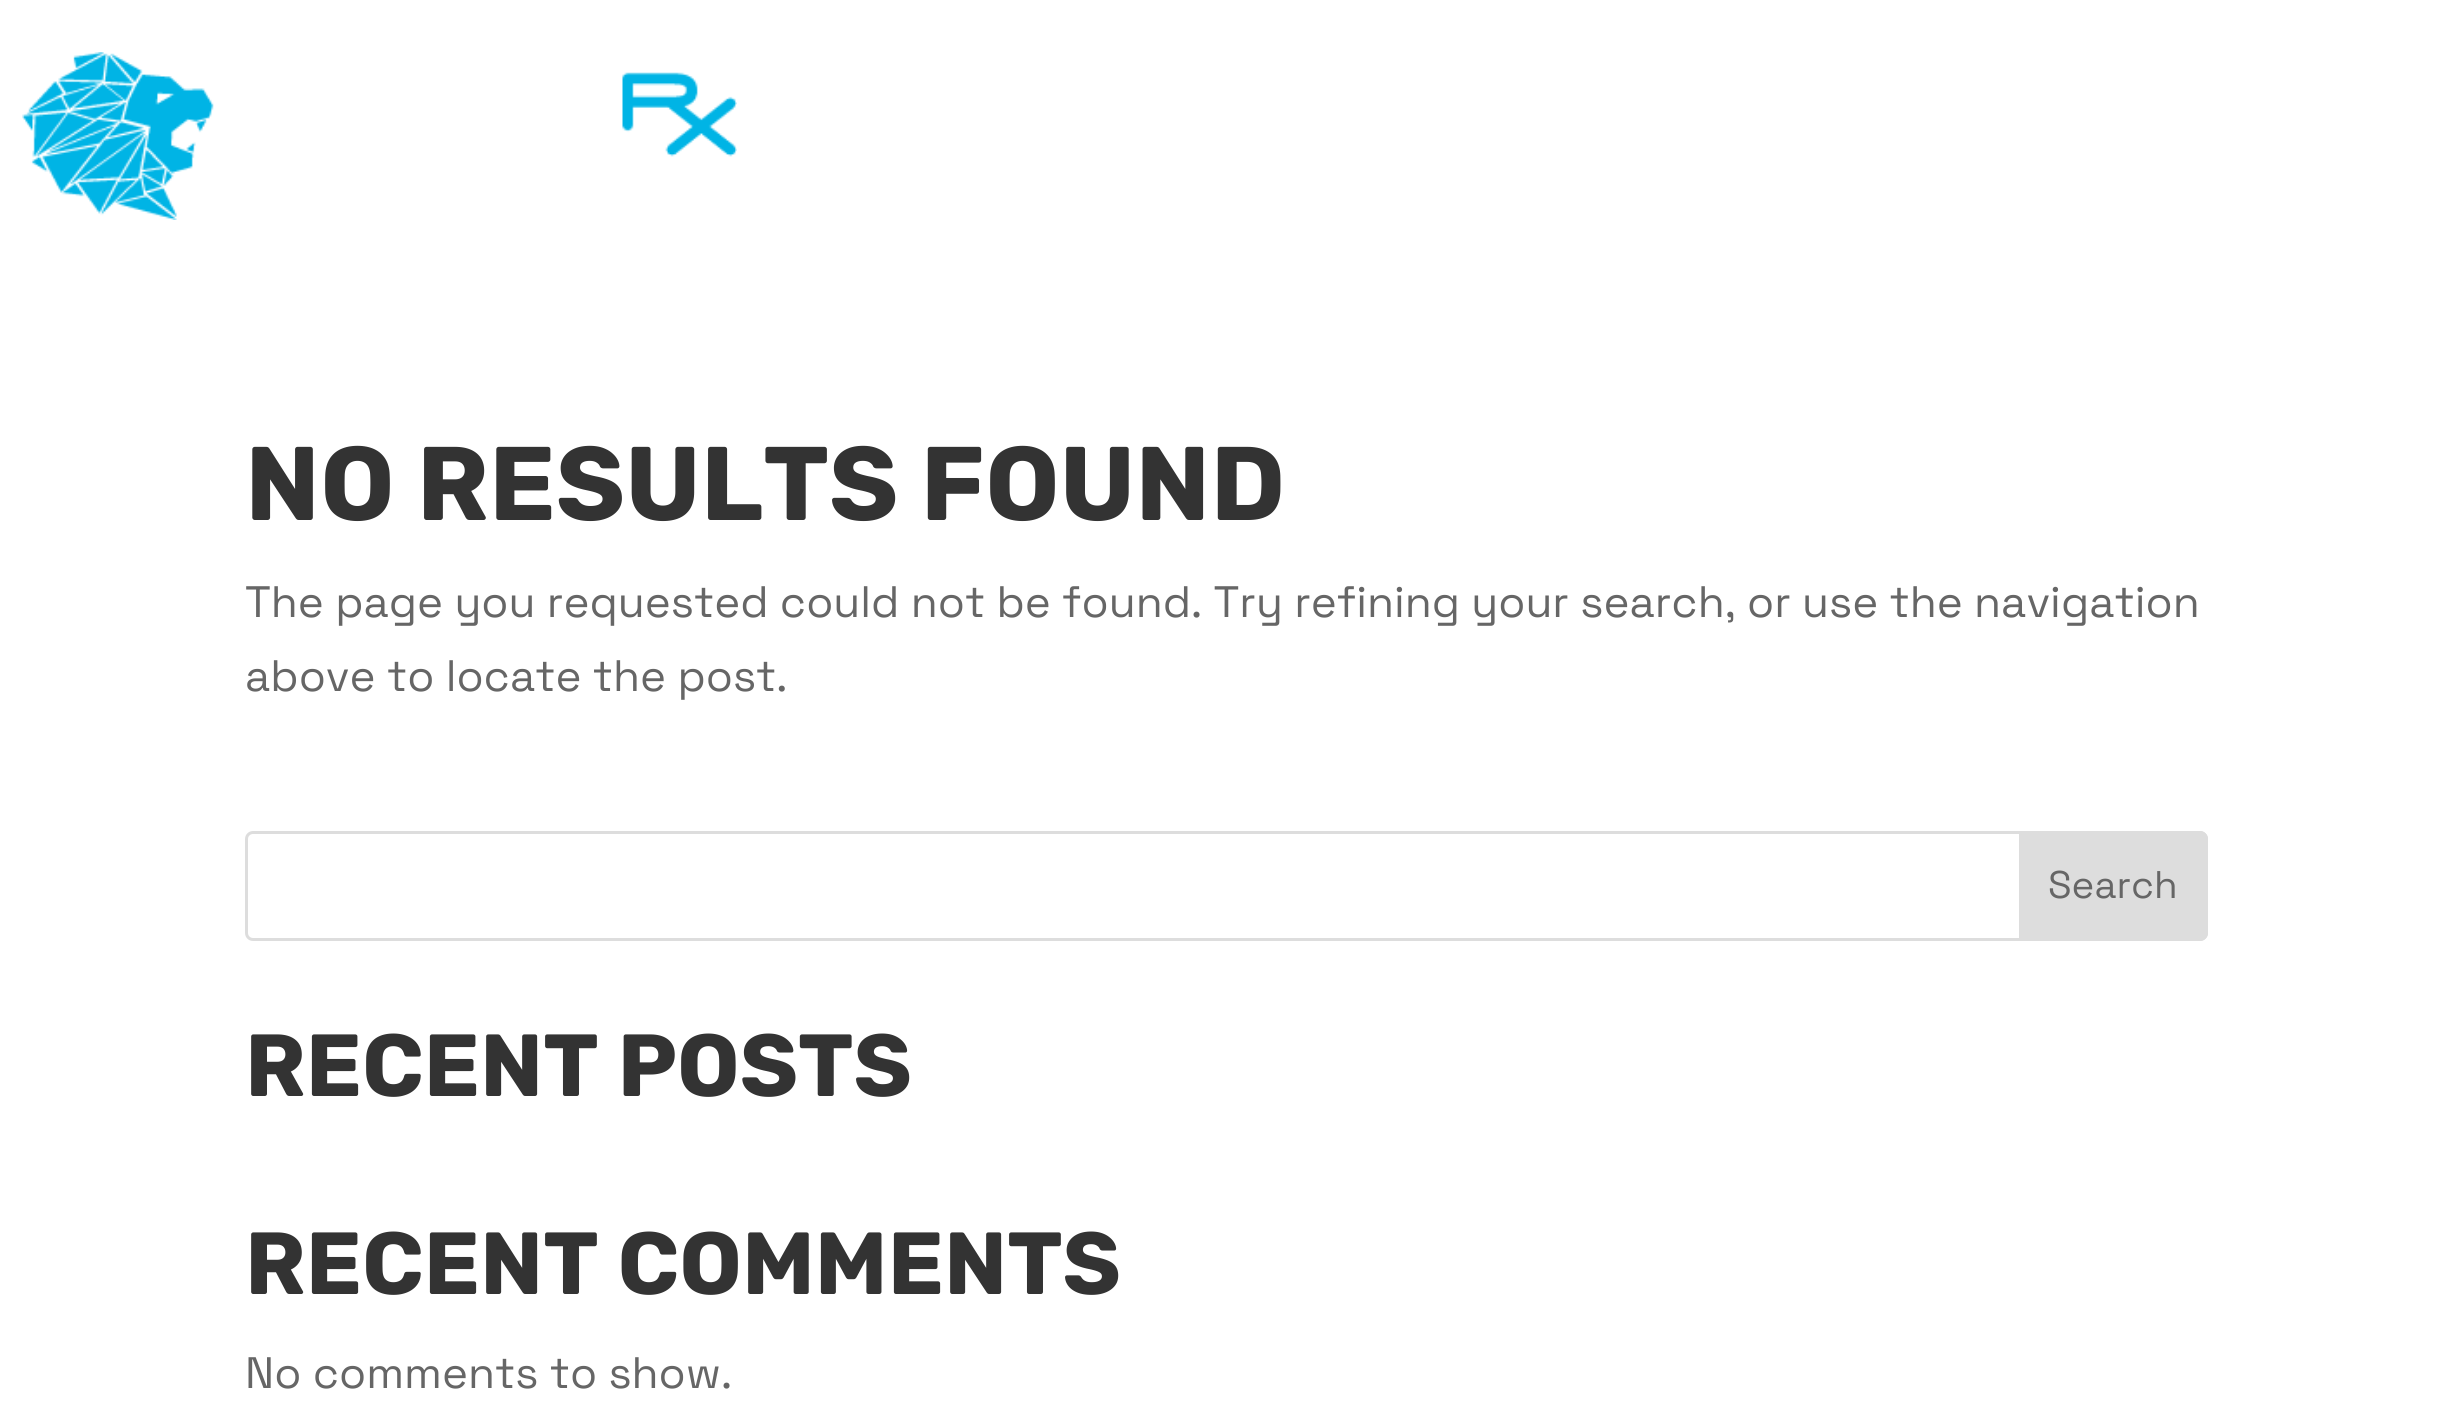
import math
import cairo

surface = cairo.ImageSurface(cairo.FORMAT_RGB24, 2452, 1414)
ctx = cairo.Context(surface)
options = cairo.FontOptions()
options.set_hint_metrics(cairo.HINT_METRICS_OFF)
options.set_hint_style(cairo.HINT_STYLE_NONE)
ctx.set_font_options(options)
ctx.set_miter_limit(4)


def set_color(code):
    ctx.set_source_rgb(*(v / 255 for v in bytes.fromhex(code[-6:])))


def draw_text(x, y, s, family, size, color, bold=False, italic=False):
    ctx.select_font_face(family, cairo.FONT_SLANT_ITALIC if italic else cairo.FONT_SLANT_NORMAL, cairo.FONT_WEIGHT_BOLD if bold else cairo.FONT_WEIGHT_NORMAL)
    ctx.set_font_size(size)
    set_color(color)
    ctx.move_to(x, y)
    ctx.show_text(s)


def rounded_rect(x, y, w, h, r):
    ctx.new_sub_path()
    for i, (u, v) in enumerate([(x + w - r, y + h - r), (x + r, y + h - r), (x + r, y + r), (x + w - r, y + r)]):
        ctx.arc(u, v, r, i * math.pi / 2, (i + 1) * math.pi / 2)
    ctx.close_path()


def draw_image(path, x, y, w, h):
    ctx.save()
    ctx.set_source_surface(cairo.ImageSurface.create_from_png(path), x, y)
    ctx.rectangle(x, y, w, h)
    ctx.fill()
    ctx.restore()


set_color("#ffffff")
ctx.paint()
draw_image("assets/img1.png", 22, 52, 715, 168)
draw_text(245, 520, "NO RESULTS FOUND", "Rubik", 104.5, "#333333", bold=True)
draw_text(245, 617, "The page you requested could not be found. Try refining your search, or use the navigation", "Space Grotesk", 44, "#666666")
draw_text(245, 691, "above to locate the post.", "Space Grotesk", 44, "#666666")
rounded_rect(246.5, 832.5, 1960, 107, 6.5)
set_color("#dddddd")
ctx.set_line_width(3)
ctx.stroke()
ctx.new_path()
ctx.move_to(2020.5, 832.5)
ctx.line_to(2200, 832.5)
ctx.curve_to(2203.5, 832.5, 2206.5, 835.5, 2206.5, 839)
ctx.line_to(2206.5, 933)
ctx.curve_to(2206.5, 936.5, 2203.5, 939.5, 2200, 939.5)
ctx.line_to(2020.5, 939.5)
ctx.close_path()
ctx.fill_preserve()
ctx.stroke()
draw_text(2048, 898, "Search", "Space Grotesk", 38.5, "#666666")
draw_text(245, 1096, "RECENT POSTS", "Rubik", 88, "#333333", bold=True)
draw_text(245, 1294, "RECENT COMMENTS", "Rubik", 88, "#333333", bold=True)
draw_text(245, 1388, "No comments to show.", "Space Grotesk", 44, "#666666")
surface.write_to_png("output.png")
